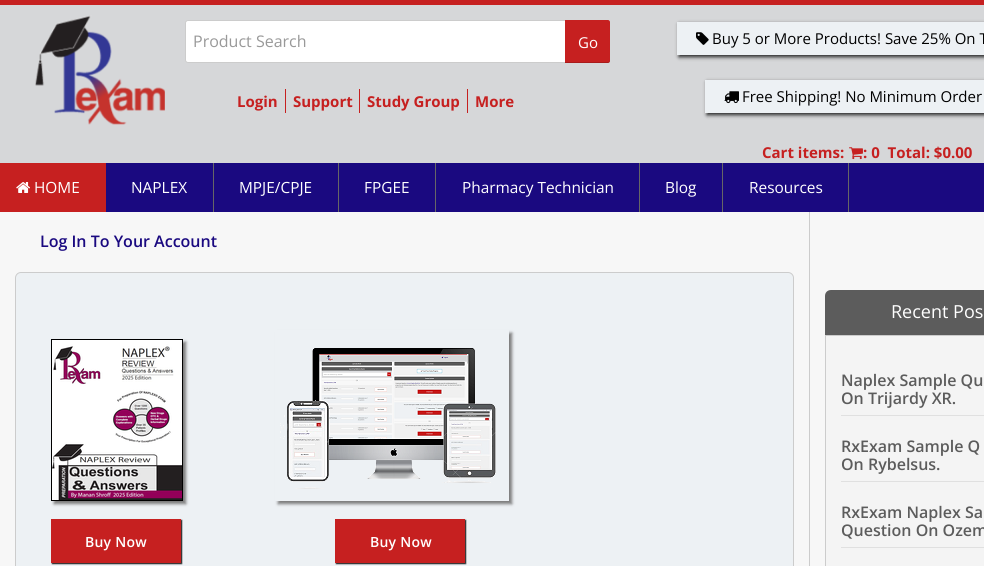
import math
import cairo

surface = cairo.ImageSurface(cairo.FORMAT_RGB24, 984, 566)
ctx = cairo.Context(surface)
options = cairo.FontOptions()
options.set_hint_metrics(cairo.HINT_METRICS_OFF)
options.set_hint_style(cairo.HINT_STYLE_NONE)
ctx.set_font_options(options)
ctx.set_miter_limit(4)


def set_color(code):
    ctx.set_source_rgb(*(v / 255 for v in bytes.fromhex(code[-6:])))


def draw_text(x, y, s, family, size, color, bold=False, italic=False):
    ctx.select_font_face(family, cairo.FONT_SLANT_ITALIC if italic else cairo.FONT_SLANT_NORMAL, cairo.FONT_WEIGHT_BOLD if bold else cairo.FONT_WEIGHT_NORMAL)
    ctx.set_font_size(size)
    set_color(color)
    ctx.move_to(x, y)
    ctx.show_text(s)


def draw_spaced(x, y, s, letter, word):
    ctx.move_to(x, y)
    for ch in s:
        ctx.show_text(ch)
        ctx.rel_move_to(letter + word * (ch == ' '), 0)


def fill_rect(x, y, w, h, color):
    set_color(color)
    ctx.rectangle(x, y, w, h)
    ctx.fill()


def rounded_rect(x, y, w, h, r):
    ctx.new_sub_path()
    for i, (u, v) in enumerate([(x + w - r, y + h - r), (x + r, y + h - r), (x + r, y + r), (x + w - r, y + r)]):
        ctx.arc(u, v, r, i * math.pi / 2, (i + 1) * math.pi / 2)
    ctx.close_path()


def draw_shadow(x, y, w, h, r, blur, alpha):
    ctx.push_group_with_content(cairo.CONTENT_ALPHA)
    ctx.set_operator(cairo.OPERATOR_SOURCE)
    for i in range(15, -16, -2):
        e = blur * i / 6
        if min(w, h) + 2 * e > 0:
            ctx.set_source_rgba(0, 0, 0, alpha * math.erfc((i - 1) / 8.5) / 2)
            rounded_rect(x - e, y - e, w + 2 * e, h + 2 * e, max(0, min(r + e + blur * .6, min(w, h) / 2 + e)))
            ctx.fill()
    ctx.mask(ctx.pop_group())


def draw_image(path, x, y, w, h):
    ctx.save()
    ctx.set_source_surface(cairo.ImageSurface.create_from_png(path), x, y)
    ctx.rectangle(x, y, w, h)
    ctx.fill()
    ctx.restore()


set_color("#f7f7f7")
ctx.paint()
fill_rect(0, 5, 984, 158, "#d6d7d9")
fill_rect(0, 0, 984, 5, "#c62020")
draw_image("assets/img1.png", 35, 15, 130, 110)
set_color("#ffffff")
rounded_rect(185.5, 20.5, 424, 42, 2.5)
ctx.fill_preserve()
set_color("#cccccc")
ctx.set_line_width(1)
ctx.stroke()
draw_text(193, 47, "Product Search", "Open Sans", 16, "#999999")
set_color("#c62020")
ctx.new_path()
ctx.move_to(565, 20)
ctx.line_to(608, 20)
ctx.curve_to(609, 20, 610, 21, 610, 22)
ctx.line_to(610, 61)
ctx.curve_to(610, 62, 609, 63, 608, 63)
ctx.line_to(565, 63)
ctx.close_path()
ctx.fill()
ctx.set_source_rgba(0, 0, 0, 0.15)
ctx.new_path()
ctx.move_to(565, 62)
ctx.line_to(565, 63)
ctx.line_to(608, 63)
ctx.curve_to(609, 63, 610, 62, 610, 61)
ctx.line_to(610, 60)
ctx.curve_to(610, 61, 609, 62, 608, 62)
ctx.close_path()
ctx.fill()
draw_text(578, 48, "Go", "Open Sans", 15, "#ffffff")
fill_rect(285, 89, 1, 24, "#c62020")
draw_text(237, 107, "Login", "Open Sans", 15, "#c62020", bold=True)
fill_rect(359, 89, 1, 24, "#c62020")
draw_text(293, 107, "Support", "Open Sans", 15, "#c62020", bold=True)
fill_rect(467, 89, 1, 24, "#c62020")
draw_text(367, 107, "Study Group", "Open Sans", 15, "#c62020", bold=True)
draw_text(475, 107, "More", "Open Sans", 15, "#c62020", bold=True)
set_color("#202020")
draw_shadow(679, 24, 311, 33, 0, 2, 1)
fill_rect(677, 22, 307, 33, "#edf1f4")
draw_image("assets/img2.png", 696, 32, 13, 13)
draw_text(712, 44, "Buy 5 or More Products! Save 25% On T", "Open Sans", 15, "#000000")
set_color("#202020")
draw_shadow(707, 82, 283, 33, 0, 2, 1)
fill_rect(705, 80, 279, 33, "#edf1f4")
draw_image("assets/img3.png", 724, 91, 15, 13)
draw_text(742, 102, "Free Shipping! No Minimum Order", "Open Sans", 15, "#000000")
draw_text(762, 158, "Cart items:", "Open Sans", 15, "#c62020", bold=True)
draw_image("assets/img4.png", 849, 147, 14, 13)
draw_text(863, 158, ": 0  Total: $0.00", "Open Sans", 15, "#c62020", bold=True)
fill_rect(106, 163, 878, 49, "#1a0980")
fill_rect(0, 163, 106, 49, "#c62020")
draw_image("assets/img5.png", 16, 182, 14, 11)
draw_text(34, 193, "HOME", "Open Sans", 15.4, "#ffffff")
fill_rect(213, 163, 1, 49, "#666666")
draw_text(131, 193, "NAPLEX", "Open Sans", 15.4, "#ffffff")
fill_rect(338, 163, 1, 49, "#666666")
draw_text(239, 193, "MPJE/CPJE", "Open Sans", 15.4, "#ffffff")
fill_rect(435, 163, 1, 49, "#666666")
draw_text(364, 193, "FPGEE", "Open Sans", 15.4, "#ffffff")
fill_rect(639, 163, 1, 49, "#666666")
draw_text(462, 193, "Pharmacy Technician", "Open Sans", 15.4, "#ffffff")
fill_rect(722, 163, 1, 49, "#666666")
draw_text(665, 193, "Blog", "Open Sans", 15.4, "#ffffff")
fill_rect(848, 163, 1, 49, "#666666")
draw_text(749, 193, "Resources", "Open Sans", 15.4, "#ffffff")
fill_rect(809, 212, 1, 354, "#cccccc")
draw_text(40, 247, "Log In To Your Account", "Open Sans SemiBold", 16, "#1a0980")
set_color("#edf1f4")
rounded_rect(15.5, 272.5, 778, 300, 5.5)
ctx.fill_preserve()
set_color("#cccccc")
ctx.stroke()
set_color("#7c7c7c")
draw_shadow(54, 342, 132, 162, 0, 1.5, 1)
draw_image("assets/img6.png", 51, 339, 132, 162)
set_color("#202020")
draw_shadow(52, 520, 130, 44, 0, 0.5, 1)
fill_rect(51, 519, 130, 44, "#c62020")
ctx.set_font_size(14)
set_color("#ffffff")
draw_spaced(85, 547, "Buy Now", 0.25, 0)
ctx.save()
ctx.set_fill_rule(cairo.FILL_RULE_EVEN_ODD)
ctx.new_path()
ctx.move_to(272, 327)
ctx.line_to(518, 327)
ctx.line_to(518, 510)
ctx.line_to(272, 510)
ctx.close_path()
ctx.move_to(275, 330)
ctx.line_to(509, 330)
ctx.line_to(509, 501)
ctx.line_to(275, 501)
ctx.close_path()
ctx.clip()
set_color("#7c7c7c")
draw_shadow(278, 333, 234, 171, 0, 1.5, 1)
ctx.restore()
draw_image("assets/img7.png", 280, 348, 216, 141)
set_color("#202020")
draw_shadow(336, 520, 130, 44, 0, 0.5, 1)
fill_rect(335, 519, 130, 44, "#c62020")
set_color("#ffffff")
draw_spaced(370, 547, "Buy Now", 0.25, 0)
set_color("#5c5c5c")
ctx.new_path()
ctx.move_to(831, 290)
ctx.line_to(984, 290)
ctx.curve_to(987.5, 290, 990, 292.5, 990, 296)
ctx.line_to(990, 338)
ctx.line_to(825, 338)
ctx.line_to(825, 296)
ctx.curve_to(825, 292.5, 827.5, 290, 831, 290)
ctx.close_path()
ctx.fill()
draw_text(891, 318, "Recent Pos", "Open Sans", 18, "#ffffff")
set_color("#f4f4f4")
ctx.rectangle(825.5, 335.5, 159, 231)
ctx.fill_preserve()
set_color("#cccccc")
ctx.stroke()
fill_rect(841, 415, 143, 1, "#e0e0e0")
draw_text(841, 386, "Naplex Sample Qu", "Open Sans SemiBold", 16, "#5c5c5c")
draw_text(841, 404, "On Trijardy XR.", "Open Sans SemiBold", 16, "#5c5c5c")
fill_rect(841, 481, 143, 1, "#e0e0e0")
draw_text(841, 452, "RxExam Sample Q", "Open Sans SemiBold", 16, "#5c5c5c")
draw_text(841, 470, "On Rybelsus.", "Open Sans SemiBold", 16, "#5c5c5c")
fill_rect(841, 547, 143, 1, "#e0e0e0")
draw_text(841, 518, "RxExam Naplex Sa", "Open Sans SemiBold", 16, "#5c5c5c")
draw_text(841, 536, "Question On Ozem", "Open Sans SemiBold", 16, "#5c5c5c")
surface.write_to_png("output.png")
